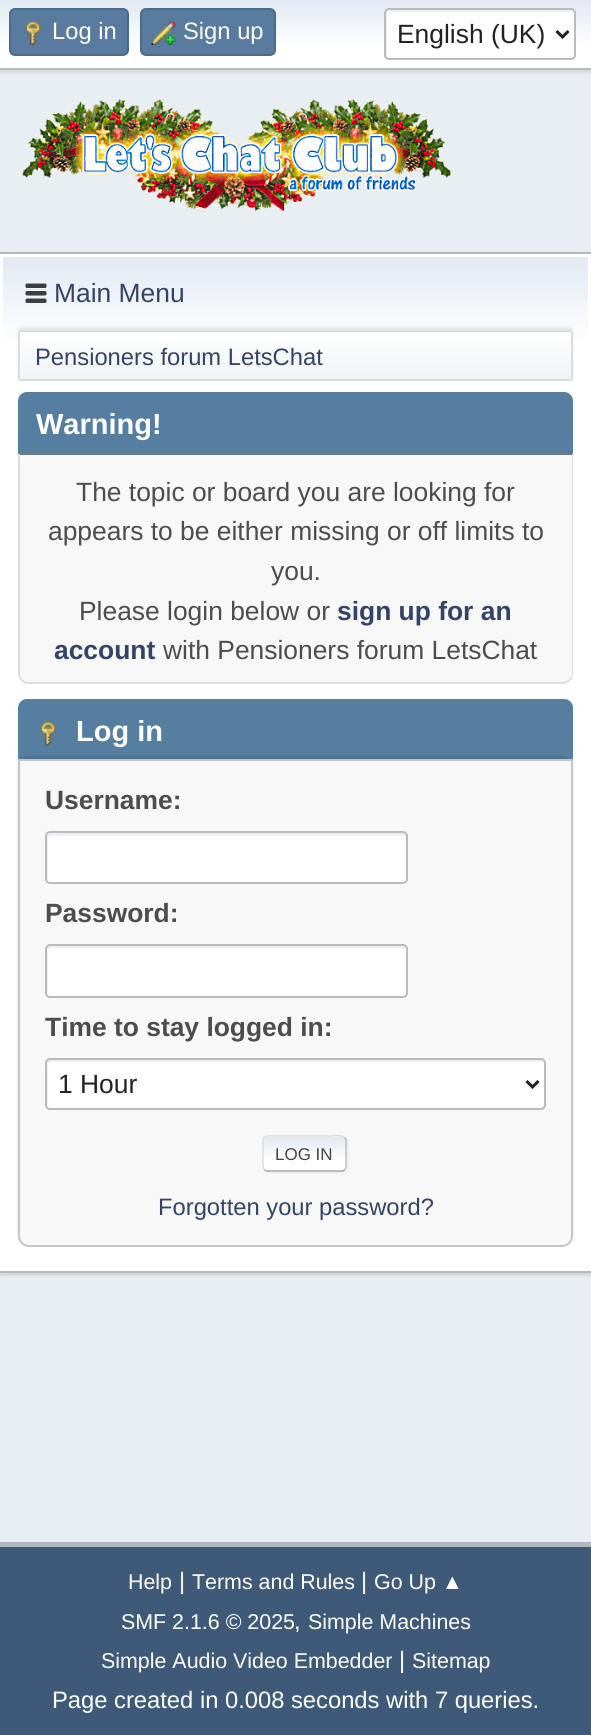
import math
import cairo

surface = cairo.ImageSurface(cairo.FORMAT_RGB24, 591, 1735)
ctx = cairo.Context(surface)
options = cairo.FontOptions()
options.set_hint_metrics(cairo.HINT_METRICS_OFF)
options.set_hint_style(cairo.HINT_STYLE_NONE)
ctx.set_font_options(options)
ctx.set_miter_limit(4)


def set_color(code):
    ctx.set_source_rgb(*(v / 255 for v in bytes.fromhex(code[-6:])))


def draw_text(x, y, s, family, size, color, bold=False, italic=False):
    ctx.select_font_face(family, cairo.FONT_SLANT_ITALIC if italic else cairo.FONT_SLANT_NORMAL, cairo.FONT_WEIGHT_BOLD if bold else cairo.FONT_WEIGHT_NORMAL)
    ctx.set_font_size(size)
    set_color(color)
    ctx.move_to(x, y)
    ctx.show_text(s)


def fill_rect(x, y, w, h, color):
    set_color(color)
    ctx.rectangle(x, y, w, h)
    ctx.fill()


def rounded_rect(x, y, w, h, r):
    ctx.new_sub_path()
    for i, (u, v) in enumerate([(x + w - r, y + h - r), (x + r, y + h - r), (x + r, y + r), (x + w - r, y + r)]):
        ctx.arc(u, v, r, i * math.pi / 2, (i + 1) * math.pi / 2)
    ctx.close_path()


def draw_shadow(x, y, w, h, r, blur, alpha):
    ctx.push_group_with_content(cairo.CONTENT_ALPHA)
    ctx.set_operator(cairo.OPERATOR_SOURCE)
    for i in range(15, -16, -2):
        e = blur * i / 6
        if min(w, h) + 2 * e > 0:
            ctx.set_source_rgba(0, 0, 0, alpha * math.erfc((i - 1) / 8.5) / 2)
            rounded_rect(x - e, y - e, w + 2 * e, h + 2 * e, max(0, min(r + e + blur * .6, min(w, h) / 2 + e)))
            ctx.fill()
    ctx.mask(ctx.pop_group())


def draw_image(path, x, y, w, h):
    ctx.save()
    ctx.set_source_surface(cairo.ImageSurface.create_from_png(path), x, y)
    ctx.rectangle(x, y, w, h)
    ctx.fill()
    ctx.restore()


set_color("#e9eef2")
ctx.paint()
set_color("#000000")
draw_shadow(0, 2, 591, 69, 0, 3, 0.16)
gradient = cairo.LinearGradient(296, 0, 296, 68)
gradient.add_color_stop_rgba(0, 0.886, 0.914, 0.953, 1)
gradient.add_color_stop_rgba(0.7, 1, 1, 1, 1)
ctx.set_source(gradient)
ctx.rectangle(0, 0, 591, 68)
ctx.fill()
fill_rect(0, 68, 591, 2, "#bbbbbb")
set_color("#597b9f")
rounded_rect(10, 9, 118, 46, 5)
ctx.fill_preserve()
set_color("#4a6b8c")
ctx.stroke()
draw_image("assets/img1.png", 25, 21, 16, 24)
draw_text(52, 39, "Log in", "Liberation Sans", 23.75, "#ffffff")
set_color("#597b9f")
rounded_rect(141, 9, 134, 46, 5)
ctx.fill_preserve()
set_color("#4a6b8c")
ctx.stroke()
draw_image("assets/img2.png", 151, 21, 25, 24)
draw_text(183, 39, "Sign up", "Liberation Sans", 23.75, "#ffffff")
rounded_rect(384, 8, 192, 52, 5)
ctx.fill()
set_color("#ecf1f8")
ctx.new_path()
ctx.move_to(390, 12)
ctx.line_to(573, 12)
ctx.line_to(575, 13)
ctx.line_to(575, 12)
ctx.curve_to(575, 10, 574, 9, 572, 9)
ctx.line_to(389, 9)
ctx.curve_to(387, 9, 386, 10, 386, 12)
ctx.line_to(386, 56)
ctx.curve_to(386, 57, 386, 58, 387, 58)
ctx.line_to(387, 22)
ctx.curve_to(387, 20, 385, 12, 390, 12)
ctx.close_path()
ctx.fill()
rounded_rect(385, 9, 190, 50, 4)
set_color("#bbbbbb")
ctx.stroke()
ctx.new_path()
ctx.move_to(556.5, 31)
ctx.line_to(562.5, 37)
ctx.line_to(568.5, 31)
set_color("#222222")
ctx.set_line_width(3)
ctx.stroke()
draw_text(397, 43, "English (UK)", "Liberation Sans", 26.4, "#222222")
draw_image("assets/img3.png", 22, 99, 429, 113)
set_color("#000000")
draw_shadow(0, 255, 591, 1020, 0, 2, 0.14)
fill_rect(0, 254, 591, 1017, "#ffffff")
fill_rect(0, 252, 591, 2, "#b8b8b8")
fill_rect(0, 1271, 591, 2, "#b8b8b8")
gradient = cairo.LinearGradient(296, 256, 296, 384)
gradient.add_color_stop_rgba(0, 0.886, 0.914, 0.953, 1)
gradient.add_color_stop_rgba(0.7, 1, 1, 1, 1)
ctx.set_source(gradient)
ctx.rectangle(3, 257, 585, 81)
ctx.fill()
draw_image("assets/img4.png", 25, 283, 22, 20)
draw_text(54, 302, "Main Menu", "Liberation Sans", 26.4, "#334466")
set_color("#000000")
draw_shadow(18, 327, 555, 51, 3, 1.5, 0.08)
ctx.save()
rounded_rect(18, 330, 555, 51, 3)
ctx.clip()
gradient = cairo.LinearGradient(296, 331, 296, 380)
gradient.add_color_stop_rgba(0, 1, 1, 1, 1)
gradient.add_color_stop_rgba(0.95, 0.945, 0.953, 0.961, 1)
ctx.set_source(gradient)
ctx.rectangle(18, 332, 555, 48)
ctx.fill()
ctx.restore()
rounded_rect(19, 331, 553, 49, 2)
set_color("#dddddd")
ctx.set_line_width(2)
ctx.stroke()
draw_text(35, 365, "Pensioners forum LetsChat", "Liberation Sans", 23.75, "#334466")
set_color("#557ea0")
ctx.new_path()
ctx.move_to(27, 392)
ctx.line_to(564, 392)
ctx.curve_to(569, 392, 573, 396, 573, 401)
ctx.line_to(573, 455)
ctx.line_to(18, 455)
ctx.line_to(18, 401)
ctx.curve_to(18, 396, 22, 392, 27, 392)
ctx.close_path()
ctx.fill()
fill_rect(18, 453, 555, 2, "#777777")
draw_text(36, 434, "Warning!", "Liberation Sans", 29, "#ffffff", bold=True)
set_color("#f8f8f8")
ctx.new_path()
ctx.move_to(18, 455)
ctx.line_to(573, 455)
ctx.line_to(573, 673)
ctx.curve_to(573, 679, 568, 684, 562, 684)
ctx.line_to(29, 684)
ctx.curve_to(23, 684, 18, 679, 18, 673)
ctx.close_path()
ctx.fill()
set_color("#dddddd")
ctx.set_fill_rule(cairo.FILL_RULE_EVEN_ODD)
ctx.new_path()
ctx.move_to(18, 454)
ctx.line_to(573, 454)
ctx.line_to(573, 674)
ctx.curve_to(573, 679, 568, 684, 562, 684)
ctx.line_to(28, 684)
ctx.curve_to(23, 684, 18, 679, 18, 674)
ctx.close_path()
ctx.move_to(20, 454)
ctx.line_to(572, 454)
ctx.line_to(572, 674)
ctx.curve_to(572, 678, 567, 682, 562, 682)
ctx.line_to(28, 682)
ctx.curve_to(24, 682, 20, 678, 20, 674)
ctx.close_path()
ctx.fill()
draw_text(76, 501, "The topic or board you are looking for", "Liberation Sans", 26.4, "#4d4d4d")
draw_text(48, 540, "appears to be either missing or off limits to", "Liberation Sans", 26.4, "#4d4d4d")
draw_text(271, 580, "you.", "Liberation Sans", 26.4, "#4d4d4d")
draw_text(79, 620, "Please login below or", "Liberation Sans", 26.4, "#4d4d4d")
draw_text(337, 620, "sign up for an", "Liberation Sans", 26.4, "#334466", bold=True)
draw_text(54, 659, "account", "Liberation Sans", 26.4, "#334466", bold=True)
draw_text(163, 659, "with Pensioners forum LetsChat", "Liberation Sans", 26.4, "#4d4d4d")
set_color("#557ea0")
ctx.new_path()
ctx.move_to(27, 699)
ctx.line_to(564, 699)
ctx.curve_to(569, 699, 573, 703, 573, 708)
ctx.line_to(573, 761)
ctx.line_to(18, 761)
ctx.line_to(18, 708)
ctx.curve_to(18, 703, 22, 699, 27, 699)
ctx.close_path()
ctx.fill()
draw_image("assets/img5.png", 40, 721, 16, 25)
draw_text(76, 741, "Log in", "Liberation Sans", 29, "#ffffff", bold=True)
set_color("#000000")
draw_shadow(18, 756, 555, 488, 11, 1.5, 0.1)
set_color("#f8f8f8")
ctx.new_path()
ctx.move_to(19, 760)
ctx.line_to(572, 760)
ctx.line_to(572, 1236)
ctx.curve_to(572, 1241.5, 567.5, 1246, 562, 1246)
ctx.line_to(29, 1246)
ctx.curve_to(23.5, 1246, 19, 1241.5, 19, 1236)
ctx.close_path()
ctx.fill_preserve()
set_color("#c5c5c5")
ctx.stroke()
draw_text(45, 809, "Username:", "Liberation Sans", 26.4, "#4d4d4d", bold=True)
set_color("#ffffff")
rounded_rect(45, 831, 363, 53, 5)
ctx.fill()
set_color("#ecf1f8")
ctx.set_fill_rule(cairo.FILL_RULE_WINDING)
ctx.new_path()
ctx.move_to(51, 836)
ctx.line_to(405, 836)
ctx.line_to(407, 836)
ctx.curve_to(407, 834, 406, 833, 404, 833)
ctx.line_to(50, 833)
ctx.curve_to(48, 833, 47, 834, 47, 836)
ctx.line_to(47, 879)
ctx.curve_to(47, 880, 47, 881, 48, 881)
ctx.line_to(48, 838)
ctx.curve_to(48, 837, 49, 836, 51, 836)
ctx.close_path()
ctx.fill()
rounded_rect(46, 832, 361, 51, 4)
set_color("#bbbbbb")
ctx.stroke()
draw_text(45, 922, "Password:", "Liberation Sans", 26.4, "#4d4d4d", bold=True)
set_color("#ffffff")
rounded_rect(45, 944, 363, 54, 5)
ctx.fill()
set_color("#ecf1f8")
ctx.new_path()
ctx.move_to(51, 948)
ctx.line_to(405, 948)
ctx.line_to(407, 949)
ctx.line_to(407, 948)
ctx.curve_to(407, 946, 406, 945, 404, 945)
ctx.line_to(50, 945)
ctx.curve_to(48, 945, 47, 946, 47, 948)
ctx.line_to(47, 993)
ctx.curve_to(47, 994, 47, 995, 48, 995)
ctx.line_to(48, 951)
ctx.curve_to(48, 949, 49, 948, 51, 948)
ctx.close_path()
ctx.fill()
rounded_rect(46, 945, 361, 52, 4)
set_color("#bbbbbb")
ctx.stroke()
draw_text(45, 1036, "Time to stay logged in:", "Liberation Sans", 26.4, "#4d4d4d", bold=True)
set_color("#ffffff")
rounded_rect(45, 1058, 501, 52, 5)
ctx.fill()
set_color("#ecf1f8")
ctx.new_path()
ctx.move_to(51, 1062)
ctx.line_to(543, 1062)
ctx.line_to(545, 1063)
ctx.curve_to(545, 1061, 544, 1059, 542, 1059)
ctx.line_to(50, 1059)
ctx.curve_to(48, 1059, 47, 1060, 47, 1062)
ctx.line_to(47, 1107)
ctx.line_to(48, 1108)
ctx.line_to(48, 1072)
ctx.curve_to(48, 1070, 46, 1062, 51, 1062)
ctx.close_path()
ctx.fill()
rounded_rect(46, 1059, 499, 50, 4)
set_color("#bbbbbb")
ctx.stroke()
ctx.new_path()
ctx.move_to(526.5, 1081)
ctx.line_to(532.5, 1087)
ctx.line_to(538.5, 1081)
set_color("#222222")
ctx.set_line_width(3)
ctx.stroke()
draw_text(58, 1093, "1 Hour", "Liberation Sans", 26.4, "#222222")
set_color("#dddddd")
draw_shadow(264, 1137, 84, 36, 5, 1, 0.57)
ctx.save()
rounded_rect(263, 1136, 84, 36, 5)
ctx.clip()
gradient = cairo.LinearGradient(305, 1104, 305, 1137)
gradient.add_color_stop_rgba(0, 0.886, 0.914, 0.953, 1)
gradient.add_color_stop_rgba(0.7, 1, 1, 1, 1)
ctx.set_source(gradient)
ctx.rectangle(263, 1136, 84, 1)
ctx.fill()
gradient = cairo.LinearGradient(305, 1137, 305, 1170)
gradient.add_color_stop_rgba(0, 0.886, 0.914, 0.953, 1)
gradient.add_color_stop_rgba(0.7, 1, 1, 1, 1)
ctx.set_source(gradient)
ctx.rectangle(263, 1137, 84, 33)
ctx.fill()
gradient = cairo.LinearGradient(305, 1170, 305, 1203)
gradient.add_color_stop_rgba(0, 0.886, 0.914, 0.953, 1)
gradient.add_color_stop_rgba(0.7, 1, 1, 1, 1)
ctx.set_source(gradient)
ctx.rectangle(263, 1170, 84, 2)
ctx.fill()
ctx.restore()
ctx.new_path()
ctx.move_to(344.5, 1137.5)
ctx.curve_to(345.5, 1138, 346, 1139, 346, 1140)
ctx.line_to(346, 1167)
ctx.curve_to(346, 1168, 345.5, 1169, 344.5, 1169.5)
set_color("#bbbbbb")
ctx.set_line_width(1.5)
ctx.stroke()
ctx.new_path()
ctx.move_to(344.5, 1169.5)
ctx.curve_to(344, 1170.5, 343, 1171, 342, 1171)
ctx.line_to(267, 1171)
ctx.curve_to(266, 1171, 265, 1170.5, 264.5, 1169.5)
set_color("#aaaaaa")
ctx.stroke()
ctx.new_path()
ctx.move_to(264.5, 1169.5)
ctx.curve_to(262, 1167.5, 263, 1156.5, 263, 1153.5)
ctx.curve_to(263, 1134, 260, 1136, 279.5, 1136)
ctx.line_to(329.5, 1136)
ctx.curve_to(330, 1136, 341.5, 1134.5, 344.5, 1137.5)
set_color("#dddddd")
ctx.stroke()
draw_text(275, 1160, "LOG IN", "Liberation Sans", 17, "#444444")
draw_text(158, 1215, "Forgotten your password?", "Liberation Sans", 23.75, "#334466")
fill_rect(0, 1547, 591, 188, "#3e5a78")
fill_rect(0, 1542, 591, 5, "#b2b6bd")
draw_text(128, 1589, "Help", "Liberation Sans", 21.4, "#ffffff")
draw_text(179, 1589, "|", "Liberation Sans", 23.75, "#ffffff")
draw_text(192, 1589, "Terms and Rules", "Liberation Sans", 21.4, "#ffffff")
draw_text(361, 1589, "|", "Liberation Sans", 23.75, "#ffffff")
draw_text(374, 1589, "Go Up ▲", "Liberation Sans", 21.4, "#ffffff")
draw_text(121, 1629, "SMF 2.1.6 © 2025", "Liberation Sans", 21.4, "#ffffff")
draw_text(294, 1629, ",", "Liberation Sans", 23.75, "#ffffff")
draw_text(308, 1629, "Simple Machines", "Liberation Sans", 21.4, "#ffffff")
draw_text(101, 1668, "Simple Audio Video Embedder", "Liberation Sans", 21.4, "#ffffff")
draw_text(399, 1668, "|", "Liberation Sans", 23.75, "#ffffff")
draw_text(412, 1668, "Sitemap", "Liberation Sans", 21.4, "#ffffff")
draw_text(52, 1708, "Page created in 0.008 seconds with 7 queries.", "Liberation Sans", 23.75, "#ffffff")
surface.write_to_png("output.png")
